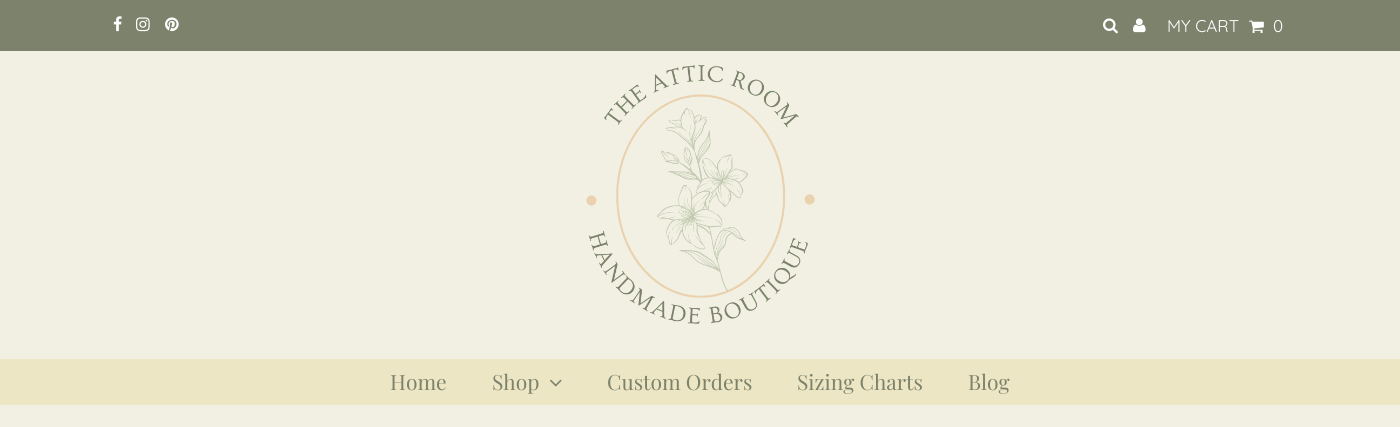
import math
import cairo

surface = cairo.ImageSurface(cairo.FORMAT_RGB24, 1400, 427)
ctx = cairo.Context(surface)
options = cairo.FontOptions()
options.set_hint_metrics(cairo.HINT_METRICS_OFF)
options.set_hint_style(cairo.HINT_STYLE_NONE)
ctx.set_font_options(options)
ctx.set_miter_limit(4)


def set_color(code):
    ctx.set_source_rgb(*(v / 255 for v in bytes.fromhex(code[-6:])))


def draw_text(x, y, s, family, size, color, bold=False, italic=False):
    ctx.select_font_face(family, cairo.FONT_SLANT_ITALIC if italic else cairo.FONT_SLANT_NORMAL, cairo.FONT_WEIGHT_BOLD if bold else cairo.FONT_WEIGHT_NORMAL)
    ctx.set_font_size(size)
    set_color(color)
    ctx.move_to(x, y)
    ctx.show_text(s)


def fill_rect(x, y, w, h, color):
    set_color(color)
    ctx.rectangle(x, y, w, h)
    ctx.fill()


def draw_image(path, x, y, w, h):
    ctx.save()
    ctx.set_source_surface(cairo.ImageSurface.create_from_png(path), x, y)
    ctx.rectangle(x, y, w, h)
    ctx.fill()
    ctx.restore()


set_color("#f1f0e2")
ctx.paint()
fill_rect(0, 0, 1400, 51, "#7c826b")
draw_image("assets/img1.png", 113, 16, 9, 16)
draw_image("assets/img2.png", 136, 17, 14, 15)
draw_image("assets/img3.png", 165, 17, 14, 15)
draw_image("assets/img4.png", 1103, 18, 15, 16)
draw_image("assets/img5.png", 1133, 18, 13, 15)
draw_text(1167, 32, "MY CART", "Quicksand", 17, "#ffffff")
draw_image("assets/img6.png", 1249, 20, 15, 14)
draw_text(1273, 32, "0", "Quicksand", 17, "#ffffff")
draw_image("assets/img7.png", 586, 65, 229, 259)
fill_rect(0, 359, 1400, 46, "#ede6c4")
draw_text(390, 390, "Home", "Playfair Display", 21, "#7c826b")
draw_text(492, 390, "Shop", "Playfair Display", 21, "#7c826b")
draw_image("assets/img8.png", 550, 379, 12, 8)
draw_text(607, 390, "Custom Orders", "Playfair Display", 21, "#7c826b")
draw_text(797, 390, "Sizing Charts", "Playfair Display", 21, "#7c826b")
draw_text(968, 390, "Blog", "Playfair Display", 21, "#7c826b")
surface.write_to_png("output.png")
